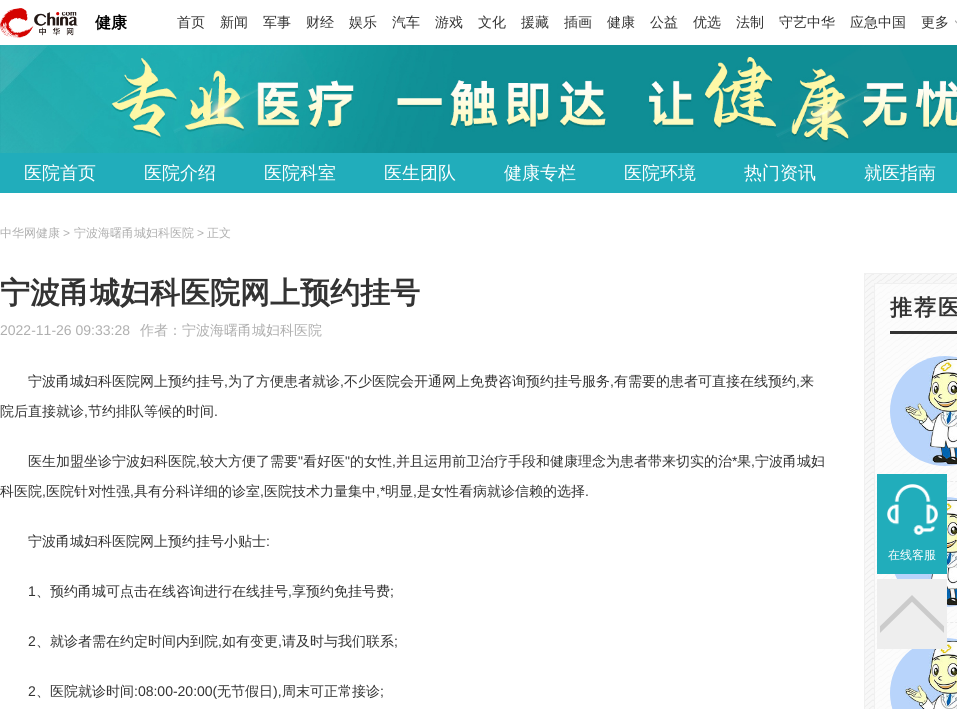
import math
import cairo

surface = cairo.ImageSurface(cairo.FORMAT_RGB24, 957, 709)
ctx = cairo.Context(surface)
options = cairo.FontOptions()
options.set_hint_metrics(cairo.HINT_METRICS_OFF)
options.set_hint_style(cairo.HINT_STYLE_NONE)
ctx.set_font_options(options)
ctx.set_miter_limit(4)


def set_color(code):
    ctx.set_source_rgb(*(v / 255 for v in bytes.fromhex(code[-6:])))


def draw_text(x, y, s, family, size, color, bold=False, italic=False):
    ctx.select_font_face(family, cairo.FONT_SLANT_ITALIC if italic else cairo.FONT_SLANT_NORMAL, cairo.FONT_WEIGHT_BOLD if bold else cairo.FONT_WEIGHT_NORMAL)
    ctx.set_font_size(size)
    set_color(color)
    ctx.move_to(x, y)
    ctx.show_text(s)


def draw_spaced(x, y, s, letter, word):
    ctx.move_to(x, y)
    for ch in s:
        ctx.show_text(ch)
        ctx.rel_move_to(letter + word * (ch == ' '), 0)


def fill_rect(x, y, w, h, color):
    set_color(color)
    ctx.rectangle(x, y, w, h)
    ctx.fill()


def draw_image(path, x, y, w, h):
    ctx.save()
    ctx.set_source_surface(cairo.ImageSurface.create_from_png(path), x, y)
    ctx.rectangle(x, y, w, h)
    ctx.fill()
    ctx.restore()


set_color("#ffffff")
ctx.paint()
draw_image("assets/img1.png", 0, 8, 78, 30)
draw_text(95, 28, "健康", "WenQuanYi Zen Hei", 16, "#000000", bold=True)
draw_text(177, 27, "首页", "WenQuanYi Zen Hei Medium", 14, "#333333")
draw_text(220, 27, "新闻", "WenQuanYi Zen Hei Medium", 14, "#333333")
draw_text(263, 27, "军事", "WenQuanYi Zen Hei Medium", 14, "#333333")
draw_text(306, 27, "财经", "WenQuanYi Zen Hei Medium", 14, "#333333")
draw_text(349, 27, "娱乐", "WenQuanYi Zen Hei Medium", 14, "#333333")
draw_text(392, 27, "汽车", "WenQuanYi Zen Hei Medium", 14, "#333333")
draw_text(435, 27, "游戏", "WenQuanYi Zen Hei Medium", 14, "#333333")
draw_text(478, 27, "文化", "WenQuanYi Zen Hei Medium", 14, "#333333")
draw_text(521, 27, "援藏", "WenQuanYi Zen Hei Medium", 14, "#333333")
draw_text(564, 27, "插画", "WenQuanYi Zen Hei Medium", 14, "#333333")
draw_text(607, 27, "健康", "WenQuanYi Zen Hei Medium", 14, "#333333")
draw_text(650, 27, "公益", "WenQuanYi Zen Hei Medium", 14, "#333333")
draw_text(693, 27, "优选", "WenQuanYi Zen Hei Medium", 14, "#333333")
draw_text(736, 27, "法制", "WenQuanYi Zen Hei Medium", 14, "#333333")
draw_text(779, 27, "守艺中华", "WenQuanYi Zen Hei Medium", 14, "#333333")
draw_text(850, 27, "应急中国", "WenQuanYi Zen Hei Medium", 14, "#333333")
draw_text(921, 27, "更多", "WenQuanYi Zen Hei Medium", 14, "#333333")
draw_image("assets/img2.png", 955, 20, 2, 4)
draw_image("assets/img3.png", 0, 45, 957, 108)
fill_rect(0, 153, 957, 40, "#21adbb")
draw_text(24, 179, "医院首页", "WenQuanYi Zen Hei Medium", 18, "#ffffff")
draw_text(144, 179, "医院介绍", "WenQuanYi Zen Hei Medium", 18, "#ffffff")
draw_text(264, 179, "医院科室", "WenQuanYi Zen Hei Medium", 18, "#ffffff")
draw_text(384, 179, "医生团队", "WenQuanYi Zen Hei Medium", 18, "#ffffff")
draw_text(504, 179, "健康专栏", "WenQuanYi Zen Hei Medium", 18, "#ffffff")
draw_text(624, 179, "医院环境", "WenQuanYi Zen Hei Medium", 18, "#ffffff")
draw_text(744, 179, "热门资讯", "WenQuanYi Zen Hei Medium", 18, "#ffffff")
draw_text(864, 179, "就医指南", "WenQuanYi Zen Hei Medium", 18, "#ffffff")
draw_text(0, 237, "中华网健康", "WenQuanYi Zen Hei Medium", 12, "#afafaf")
draw_text(63, 237, ">", "Liberation Sans", 12, "#afafaf")
draw_text(74, 237, "宁波海曙甬城妇科医院", "WenQuanYi Zen Hei Medium", 12, "#afafaf")
draw_text(197, 237, ">", "Liberation Sans", 12, "#afafaf")
draw_text(207, 237, "正文", "WenQuanYi Zen Hei Medium", 12, "#afafaf")
draw_text(0, 303, "宁波甬城妇科医院网上预约挂号", "WenQuanYi Zen Hei", 30, "#333333", bold=True)
draw_text(0, 335, "2022-11-26 09:33:28", "Liberation Sans", 14, "#afafaf")
draw_text(140, 335, "作者：宁波海曙甬城妇科医院", "WenQuanYi Zen Hei Medium", 14, "#afafaf")
draw_text(28, 386, "宁波甬城妇科医院网上预约挂号", "WenQuanYi Zen Hei Medium", 14, "#333333")
draw_text(224, 386, ",", "Liberation Sans", 14, "#333333")
draw_text(228, 386, "为了方便患者就诊", "WenQuanYi Zen Hei Medium", 14, "#333333")
draw_text(340, 386, ",", "Liberation Sans", 14, "#333333")
draw_text(344, 386, "不少医院会开通网上免费咨询预约挂号服务", "WenQuanYi Zen Hei Medium", 14, "#333333")
draw_text(610, 386, ",", "Liberation Sans", 14, "#333333")
draw_text(614, 386, "有需要的患者可直接在线预约", "WenQuanYi Zen Hei Medium", 14, "#333333")
draw_text(796, 386, ",", "Liberation Sans", 14, "#333333")
draw_text(800, 386, "来", "WenQuanYi Zen Hei Medium", 14, "#333333")
draw_text(0, 416, "院后直接就诊", "WenQuanYi Zen Hei Medium", 14, "#333333")
draw_text(84, 416, ",", "Liberation Sans", 14, "#333333")
draw_text(88, 416, "节约排队等候的时间", "WenQuanYi Zen Hei Medium", 14, "#333333")
draw_text(214, 416, ".", "Liberation Sans", 14, "#333333")
draw_text(28, 466, "医生加盟坐诊宁波妇科医院", "WenQuanYi Zen Hei Medium", 14, "#333333")
draw_text(200, 466, "较大方便了需要", "WenQuanYi Zen Hei Medium", 14, "#333333")
draw_text(298, 466, "\"", "Liberation Sans", 14, "#333333")
draw_text(303, 466, "看好医", "WenQuanYi Zen Hei Medium", 14, "#333333")
draw_text(345, 466, "\"", "Liberation Sans", 14, "#333333")
draw_text(350, 466, "的女性", "WenQuanYi Zen Hei Medium", 14, "#333333")
draw_text(396, 466, "并且运用前卫治疗手段和健康理念为患者带来切实的治", "WenQuanYi Zen Hei Medium", 14, "#333333")
draw_text(732, 466, "*", "Liberation Sans", 14, "#333333")
draw_text(737, 466, "果", "WenQuanYi Zen Hei Medium", 14, "#333333")
draw_text(755, 466, "宁波甬城妇", "WenQuanYi Zen Hei Medium", 14, "#333333")
draw_text(196, 466, ",", "Liberation Sans", 14, "#333333")
draw_text(392, 466, ",", "Liberation Sans", 14, "#333333")
draw_text(751, 466, ",", "Liberation Sans", 14, "#333333")
draw_text(0, 496, "科医院", "WenQuanYi Zen Hei Medium", 14, "#333333")
draw_text(42, 496, ",", "Liberation Sans", 14, "#333333")
draw_text(46, 496, "医院针对性强", "WenQuanYi Zen Hei Medium", 14, "#333333")
draw_text(130, 496, ",", "Liberation Sans", 14, "#333333")
draw_text(134, 496, "具有分科详细的诊室", "WenQuanYi Zen Hei Medium", 14, "#333333")
draw_text(260, 496, ",", "Liberation Sans", 14, "#333333")
draw_text(264, 496, "医院技术力量集中", "WenQuanYi Zen Hei Medium", 14, "#333333")
draw_text(376, 496, ",*", "Liberation Sans", 14, "#333333")
draw_text(385, 496, "明显", "WenQuanYi Zen Hei Medium", 14, "#333333")
draw_text(413, 496, ",", "Liberation Sans", 14, "#333333")
draw_text(417, 496, "是女性看病就诊信赖的选择", "WenQuanYi Zen Hei Medium", 14, "#333333")
draw_text(585, 496, ".", "Liberation Sans", 14, "#333333")
draw_text(28, 546, "宁波甬城妇科医院网上预约挂号小贴士", "WenQuanYi Zen Hei Medium", 14, "#333333")
draw_text(266, 546, ":", "Liberation Sans", 14, "#333333")
draw_text(28, 596, "1", "Liberation Sans", 14, "#333333")
draw_text(36, 596, "、预约甬城可点击在线咨询进行在线挂号", "WenQuanYi Zen Hei Medium", 14, "#333333")
draw_text(288, 596, ",", "Liberation Sans", 14, "#333333")
draw_text(292, 596, "享预约免挂号费", "WenQuanYi Zen Hei Medium", 14, "#333333")
draw_text(390, 596, ";", "Liberation Sans", 14, "#333333")
draw_text(28, 646, "2", "Liberation Sans", 14, "#333333")
draw_text(36, 646, "、就诊者需在约定时间内到院", "WenQuanYi Zen Hei Medium", 14, "#333333")
draw_text(218, 646, ",", "Liberation Sans", 14, "#333333")
draw_text(222, 646, "如有变更", "WenQuanYi Zen Hei Medium", 14, "#333333")
draw_text(278, 646, ",", "Liberation Sans", 14, "#333333")
draw_text(282, 646, "请及时与我们联系", "WenQuanYi Zen Hei Medium", 14, "#333333")
draw_text(394, 646, ";", "Liberation Sans", 14, "#333333")
draw_text(28, 696, "2", "Liberation Sans", 14, "#333333")
draw_text(36, 696, "、医院就诊时间", "WenQuanYi Zen Hei Medium", 14, "#333333")
draw_text(134, 696, ":08:00-20:00(", "Liberation Sans", 14, "#333333")
draw_text(217, 696, "无节假日", "WenQuanYi Zen Hei Medium", 14, "#333333")
draw_text(273, 696, "),", "Liberation Sans", 14, "#333333")
draw_text(282, 696, "周末可正常接诊", "WenQuanYi Zen Hei Medium", 14, "#333333")
draw_text(380, 696, ";", "Liberation Sans", 14, "#333333")
draw_image("assets/img4.png", 865, 274, 92, 435)
ctx.rectangle(864.5, 273.5, 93, 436)
set_color("#f0f0f0")
ctx.set_line_width(1)
ctx.stroke()
ctx.set_source_rgba(1, 1, 1, 0.6)
ctx.rectangle(874.5, 283.5, 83, 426)
ctx.fill_preserve()
set_color("#f0f0f0")
ctx.stroke()
fill_rect(890, 331, 67, 3, "#333333")
ctx.select_font_face("WenQuanYi Zen Hei", cairo.FONT_SLANT_NORMAL, cairo.FONT_WEIGHT_BOLD)
ctx.set_font_size(22)
draw_spaced(890, 315, "推荐医", 2, 0)
draw_image("assets/img5.png", 890, 356, 67, 110)
ctx.new_path()
ctx.move_to(890, 481.5)
ctx.line_to(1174, 481.5)
set_color("#eaeaea")
ctx.set_dash([3, 2.02])
ctx.stroke()
draw_image("assets/img6.png", 894, 497, 63, 110)
ctx.new_path()
ctx.move_to(890, 622.5)
ctx.line_to(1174, 622.5)
ctx.stroke()
draw_image("assets/img7.png", 890, 638, 67, 71)
fill_rect(877, 474, 70, 100, "#21adbb")
draw_image("assets/img8.png", 887, 484, 51, 51)
draw_text(888, 559, "在线客服", "WenQuanYi Zen Hei Medium", 12, "#ffffff")
fill_rect(877, 579, 70, 70, "#eeeeee")
draw_image("assets/img9.png", 880, 595, 64, 38)
surface.write_to_png("output.png")
